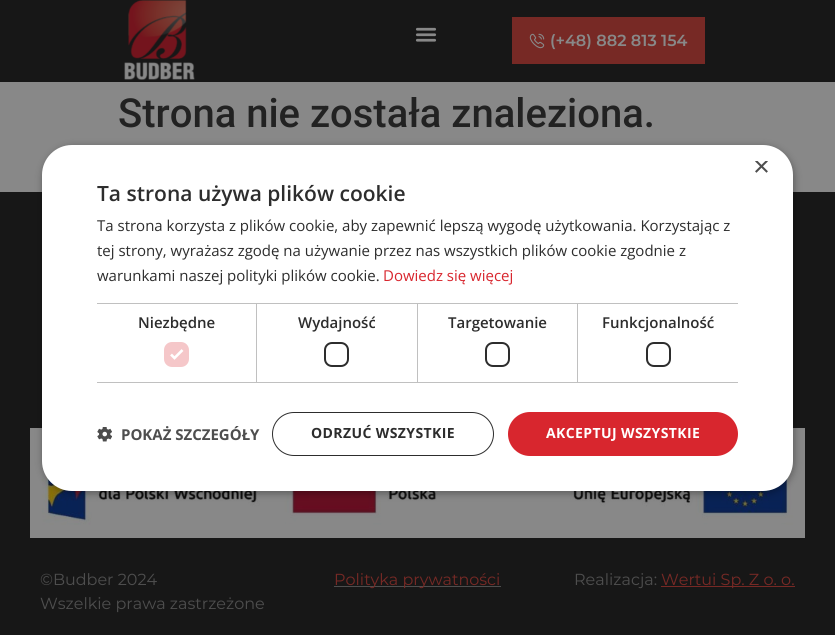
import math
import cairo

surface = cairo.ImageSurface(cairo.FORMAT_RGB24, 835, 635)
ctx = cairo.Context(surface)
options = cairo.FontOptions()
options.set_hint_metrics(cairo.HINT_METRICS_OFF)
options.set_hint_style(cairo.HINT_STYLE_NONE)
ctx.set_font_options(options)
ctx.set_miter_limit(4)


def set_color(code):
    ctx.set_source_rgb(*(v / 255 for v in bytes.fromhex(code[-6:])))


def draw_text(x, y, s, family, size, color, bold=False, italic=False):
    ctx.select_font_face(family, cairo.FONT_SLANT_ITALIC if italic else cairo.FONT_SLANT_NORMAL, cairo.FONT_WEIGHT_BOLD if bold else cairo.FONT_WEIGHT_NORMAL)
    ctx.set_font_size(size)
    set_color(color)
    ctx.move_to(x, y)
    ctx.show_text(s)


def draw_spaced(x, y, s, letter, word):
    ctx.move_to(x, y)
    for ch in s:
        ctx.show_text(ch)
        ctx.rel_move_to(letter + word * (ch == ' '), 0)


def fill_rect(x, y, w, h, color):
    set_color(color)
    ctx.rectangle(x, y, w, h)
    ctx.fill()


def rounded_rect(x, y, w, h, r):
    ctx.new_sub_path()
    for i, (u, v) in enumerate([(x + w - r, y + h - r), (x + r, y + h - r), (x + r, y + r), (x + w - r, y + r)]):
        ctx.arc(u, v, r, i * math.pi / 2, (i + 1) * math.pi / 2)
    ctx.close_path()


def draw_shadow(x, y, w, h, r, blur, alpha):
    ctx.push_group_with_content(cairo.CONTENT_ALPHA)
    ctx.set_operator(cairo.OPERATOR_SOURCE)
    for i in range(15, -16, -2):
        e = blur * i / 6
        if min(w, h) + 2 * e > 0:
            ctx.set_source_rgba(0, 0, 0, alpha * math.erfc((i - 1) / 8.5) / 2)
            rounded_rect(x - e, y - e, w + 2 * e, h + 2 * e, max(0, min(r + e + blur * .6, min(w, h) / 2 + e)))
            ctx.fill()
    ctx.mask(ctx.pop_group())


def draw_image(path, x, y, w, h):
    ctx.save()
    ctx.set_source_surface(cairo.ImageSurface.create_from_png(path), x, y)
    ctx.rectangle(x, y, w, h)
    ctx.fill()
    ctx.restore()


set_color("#888888")
ctx.paint()
fill_rect(0, 0, 835, 82, "#171717")
draw_image("assets/img1.png", 124, 0, 71, 80)
draw_image("assets/img2.png", 415, 27, 22, 15)
fill_rect(512, 17, 193, 47, "#772925")
draw_image("assets/img3.png", 529, 33, 16, 16)
draw_text(550, 46, "(+48) 882 813 154", "Montserrat SemiBold", 16, "#888888")
draw_text(118, 127, "Strona nie została znaleziona.", "Roboto Medium", 40, "#222222")
fill_rect(0, 192, 835, 443, "#171717")
draw_image("assets/img5.png", 30, 428, 775, 110)
set_color("#000000")
draw_shadow(43, 147, 751, 346, 30, 4, 0.35)
set_color("#ffffff")
rounded_rect(42, 145, 751, 346, 30)
ctx.fill()
ctx.save()
ctx.rectangle(753, 161, 15, 15)
ctx.clip()
draw_text(753, 176, "×", "Liberation Sans", 29, "#4e4e4e")
ctx.restore()
draw_text(97, 201, "Ta strona używa plików cookie", "Open Sans SemiBold", 21, "#2d2d2d")
draw_text(97, 231, "Ta strona korzysta z plików cookie, aby zapewnić lepszą wygodę użytkowania. Korzystając z", "Open Sans", 15, "#2d2d2d")
draw_text(97, 256, "tej strony, wyrażasz zgodę na używanie przez nas wszystkich plików cookie zgodnie z", "Open Sans", 15, "#2d2d2d")
draw_text(97, 281, "warunkami naszej polityki plików cookie.", "Open Sans", 15, "#2d2d2d")
draw_text(383, 281, "Dowiedz się więcej", "Open Sans", 15, "#d8262e")
fill_rect(97, 303, 641, 1, "#c0c0c0")
fill_rect(256, 303, 1, 80, "#c0c0c0")
fill_rect(97, 382, 160, 1, "#c0c0c0")
draw_text(138, 328, "Niezbędne", "Open Sans SemiBold", 15, "#2d2d2d")
set_color("#f5c7c9")
rounded_rect(164, 342, 25, 25, 8)
ctx.fill()
ctx.new_path()
ctx.move_to(171, 354.5)
ctx.line_to(174.5, 358)
ctx.line_to(182.5, 350)
set_color("#ffffff")
ctx.set_line_width(2.6)
ctx.stroke()
fill_rect(417, 303, 1, 80, "#c0c0c0")
fill_rect(257, 382, 161, 1, "#c0c0c0")
draw_text(298, 328, "Wydajność", "Open Sans SemiBold", 15, "#2d2d2d")
rounded_rect(325, 343, 23, 23, 7)
ctx.set_line_width(2)
ctx.stroke()
fill_rect(577, 303, 1, 80, "#c0c0c0")
fill_rect(418, 382, 320, 1, "#c0c0c0")
draw_text(448, 328, "Targetowanie", "Open Sans SemiBold", 15, "#2d2d2d")
rounded_rect(486, 343, 23, 23, 7)
ctx.stroke()
draw_text(602, 328, "Funkcjonalność", "Open Sans SemiBold", 15, "#2d2d2d")
rounded_rect(647, 343, 23, 23, 7)
ctx.stroke()
draw_image("assets/img4.png", 97, 427, 15, 15)
draw_text(121, 440, "POKAŻ SZCZEGÓŁY", "Open Sans", 15, "#4e4e4e", bold=True)
rounded_rect(272.5, 412.5, 221, 43, 21.5)
set_color("#2d2d2d")
ctx.set_line_width(1)
ctx.stroke()
ctx.set_font_size(14)
draw_spaced(311, 438, "ODRZUĆ WSZYSTKIE", 0.4, 0)
set_color("#d8262e")
rounded_rect(508, 412, 230, 44, 22)
ctx.fill()
set_color("#ffffff")
draw_spaced(546, 438, "AKCEPTUJ WSZYSTKIE", 0.4, 0)
draw_text(40, 585, "©Budber 2024", "Montserrat", 16, "#4e4e4e")
draw_text(40, 609, "Wszelkie prawa zastrzeżone", "Montserrat", 16, "#4e4e4e")
fill_rect(334, 586, 167, 1, "#4e4e4e")
draw_text(334, 585, "Polityka prywatności", "Montserrat", 16, "#772925")
draw_text(574, 585, "Realizacja:", "Montserrat", 16, "#4e4e4e")
fill_rect(661, 586, 134, 1, "#772925")
draw_text(661, 585, "Wertui Sp. Z o. o.", "Montserrat", 16, "#772925")
surface.write_to_png("output.png")
